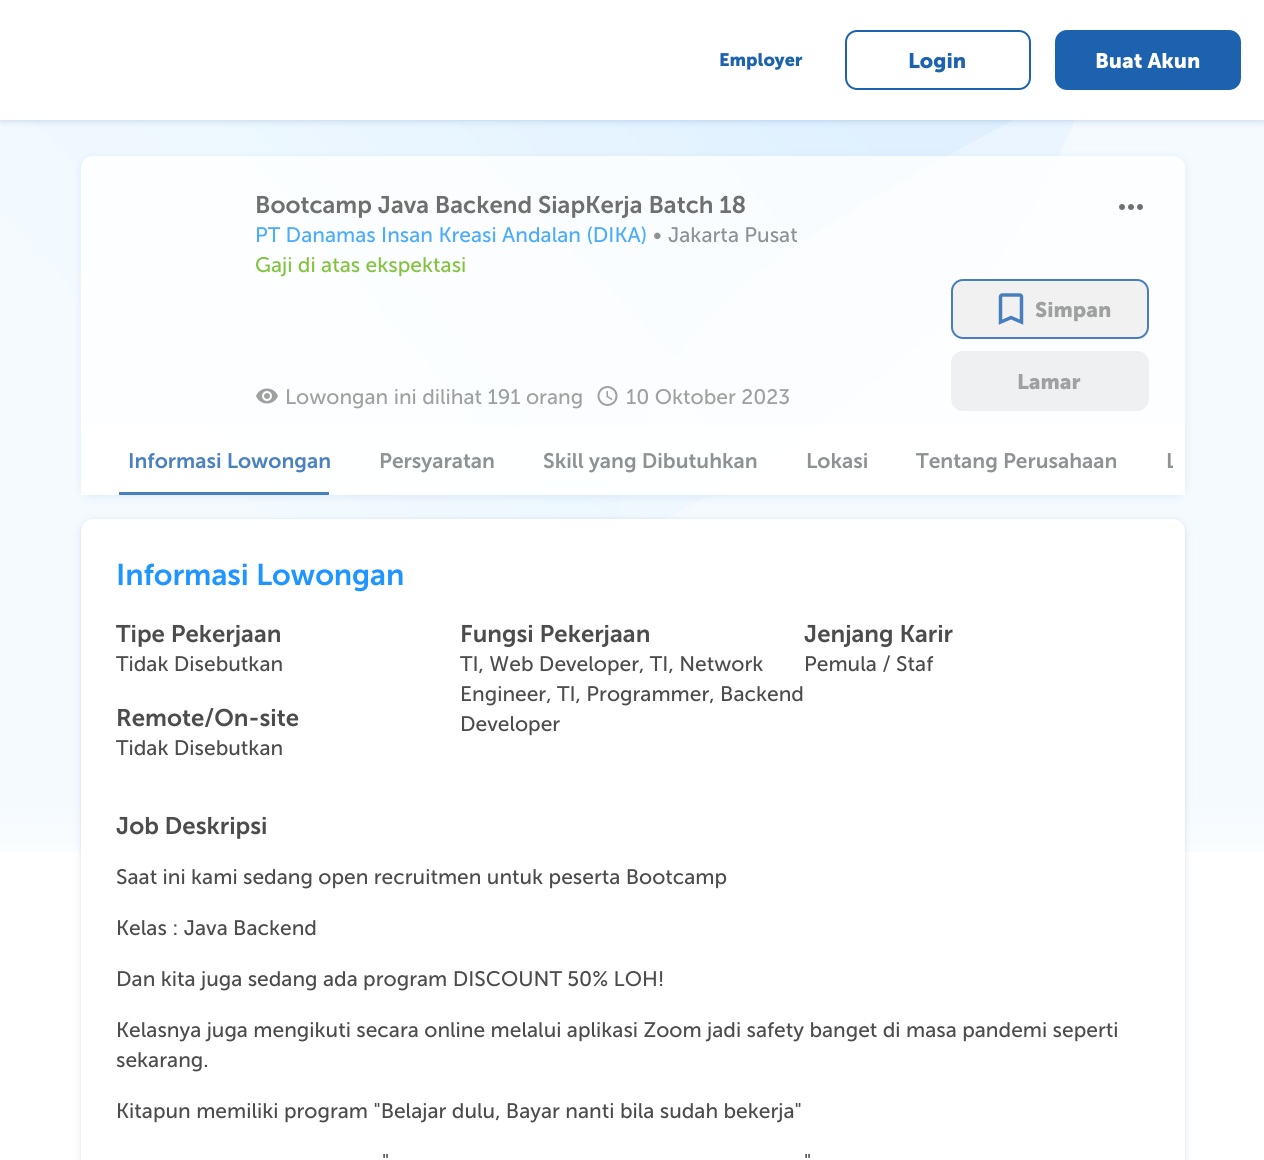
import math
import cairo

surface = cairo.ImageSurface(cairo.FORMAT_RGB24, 1264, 1160)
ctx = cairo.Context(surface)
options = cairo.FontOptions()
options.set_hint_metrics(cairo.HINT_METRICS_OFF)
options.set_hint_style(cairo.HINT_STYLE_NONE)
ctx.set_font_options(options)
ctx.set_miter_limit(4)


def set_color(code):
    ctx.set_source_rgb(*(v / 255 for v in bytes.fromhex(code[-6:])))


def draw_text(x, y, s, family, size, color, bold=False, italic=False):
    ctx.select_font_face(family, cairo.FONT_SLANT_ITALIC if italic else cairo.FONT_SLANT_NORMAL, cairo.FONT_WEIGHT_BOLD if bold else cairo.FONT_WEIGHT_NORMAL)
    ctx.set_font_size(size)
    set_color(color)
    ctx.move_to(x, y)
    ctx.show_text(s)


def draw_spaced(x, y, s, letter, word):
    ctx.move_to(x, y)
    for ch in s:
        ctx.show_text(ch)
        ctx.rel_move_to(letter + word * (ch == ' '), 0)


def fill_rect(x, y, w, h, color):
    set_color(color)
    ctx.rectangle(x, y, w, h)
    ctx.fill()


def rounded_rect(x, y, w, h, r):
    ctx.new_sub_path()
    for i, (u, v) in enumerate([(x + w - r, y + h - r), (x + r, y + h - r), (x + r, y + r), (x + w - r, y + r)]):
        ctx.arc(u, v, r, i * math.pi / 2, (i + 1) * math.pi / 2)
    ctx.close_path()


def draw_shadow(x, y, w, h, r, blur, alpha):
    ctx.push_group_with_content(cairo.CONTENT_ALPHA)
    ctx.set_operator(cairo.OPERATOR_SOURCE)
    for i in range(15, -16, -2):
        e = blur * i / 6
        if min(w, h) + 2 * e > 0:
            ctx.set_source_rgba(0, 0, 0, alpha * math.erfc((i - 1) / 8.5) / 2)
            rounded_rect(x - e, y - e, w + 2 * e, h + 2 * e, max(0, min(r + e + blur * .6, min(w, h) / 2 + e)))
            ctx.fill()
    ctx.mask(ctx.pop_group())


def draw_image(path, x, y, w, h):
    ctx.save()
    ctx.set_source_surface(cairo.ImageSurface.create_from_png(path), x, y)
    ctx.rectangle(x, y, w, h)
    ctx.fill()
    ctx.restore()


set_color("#ffffff")
ctx.paint()
draw_image("assets/img1.png", 0, 120, 1264, 732)
set_color("#1d62ae")
draw_shadow(0, 3, 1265, 120, 0, 3, 0.12)
set_color("#28293d")
draw_shadow(0, 0, 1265, 120, 0, 1, 0.08)
fill_rect(0, 0, 1264, 120, "#ffffff")
draw_text(719, 66, "Employer", "Museo Sans", 18, "#1d62ae", bold=True)
rounded_rect(846, 31, 184, 58, 11)
ctx.stroke()
draw_text(908, 68, "Login", "Museo Sans", 21, "#1d62ae", bold=True)
rounded_rect(1055, 30, 186, 60, 12)
ctx.fill()
draw_text(1095, 68, "Buat Akun", "Museo Sans", 21, "#ffffff", bold=True)
ctx.save()
ctx.set_fill_rule(cairo.FILL_RULE_EVEN_ODD)
ctx.new_path()
ctx.move_to(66, 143)
ctx.line_to(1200, 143)
ctx.line_to(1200, 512)
ctx.line_to(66, 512)
ctx.close_path()
ctx.move_to(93, 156)
ctx.line_to(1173, 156)
ctx.curve_to(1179.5, 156, 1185, 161.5, 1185, 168)
ctx.line_to(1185, 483)
ctx.curve_to(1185, 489.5, 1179.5, 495, 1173, 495)
ctx.line_to(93, 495)
ctx.curve_to(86.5, 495, 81, 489.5, 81, 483)
ctx.line_to(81, 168)
ctx.curve_to(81, 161.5, 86.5, 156, 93, 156)
ctx.close_path()
ctx.clip()
set_color("#1d62ae")
draw_shadow(81, 158, 1104, 339, 12, 4.5, 0.1)
ctx.restore()
ctx.set_source_rgba(1, 1, 1, 0.8)
rounded_rect(81, 156, 1104, 339, 12)
ctx.fill()
draw_text(255, 213, "Bootcamp Java Backend SiapKerja Batch 18", "Museo Sans SemiBold", 24, "#6f6f70")
draw_image("assets/img2.png", 1119, 204, 24, 6)
draw_text(255, 242, "PT Danamas Insan Kreasi Andalan (DIKA)", "Museo Sans", 21, "#4babff")
draw_text(653, 242, "•", "Museo Sans", 21, "#8f9294")
draw_text(668, 242, "Jakarta Pusat", "Museo Sans", 21, "#8f9294")
draw_text(255, 272, "Gaji di atas ekspektasi", "Museo Sans", 21, "#82c33d")
set_color("#f1f1f1")
rounded_rect(951, 279, 198, 60, 12)
ctx.fill()
rounded_rect(952, 280, 196, 58, 11)
ctx.set_source_rgba(0.114, 0.384, 0.682, 0.8)
ctx.stroke()
draw_image("assets/img3.png", 998, 293, 26, 32)
draw_text(1035, 317, "Simpan", "Museo Sans", 21, "#9fa0a0", bold=True)
set_color("#eff0f1")
rounded_rect(951, 351, 198, 60, 12)
ctx.fill()
draw_text(1017, 389, "Lamar", "Museo Sans", 21, "#9fa0a0", bold=True)
draw_image("assets/img4.png", 256, 388, 22, 16)
draw_text(285, 404, "Lowongan ini dilihat 191 orang", "Museo Sans", 21, "#9fa0a0")
draw_image("assets/img5.png", 597, 386, 21, 20)
draw_text(626, 404, "10 Oktober 2023", "Museo Sans", 21, "#9fa0a0")
ctx.set_source_rgba(1, 1, 1, 0.8)
ctx.rectangle(81, 426, 1104, 69)
ctx.fill()
draw_text(128, 468, "Informasi Lowongan", "Museo Sans SemiBold", 21, "#4a81be")
draw_text(379, 468, "Persyaratan", "Museo Sans SemiBold", 21, "#8f9294")
draw_text(543, 468, "Skill yang Dibutuhkan", "Museo Sans SemiBold", 21, "#8f9294")
draw_text(806, 468, "Lokasi", "Museo Sans SemiBold", 21, "#8f9294")
draw_text(916, 468, "Tentang Perusahaan", "Museo Sans SemiBold", 21, "#8f9294")
ctx.save()
ctx.rectangle(1142, 426, 31, 69)
ctx.clip()
draw_text(1166, 468, "L", "Museo Sans SemiBold", 21, "#8f9294")
ctx.restore()
fill_rect(119, 492, 210, 3, "#4880be")
set_color("#1d62ae")
draw_shadow(81, 521, 1104, 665, 12, 4.5, 0.12)
set_color("#28293d")
draw_shadow(81, 519, 1104, 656, 12, 1, 0.08)
set_color("#ffffff")
rounded_rect(81, 519, 1104, 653, 12)
ctx.fill()
ctx.set_font_size(30)
set_color("#1f96ff")
draw_spaced(116, 585, "Informasi Lowongan", -0.1, 0)
draw_text(116, 642, "Tipe Pekerjaan", "Museo Sans SemiBold", 24, "#4c4c4c")
draw_text(116, 671, "Tidak Disebutkan", "Museo Sans", 21, "#4c4c4c")
draw_text(116, 726, "Remote/On-site", "Museo Sans SemiBold", 24, "#4c4c4c")
draw_text(116, 755, "Tidak Disebutkan", "Museo Sans", 21, "#4c4c4c")
draw_text(460, 642, "Fungsi Pekerjaan", "Museo Sans SemiBold", 24, "#4c4c4c")
draw_text(460, 671, "TI, Web Developer, TI, Network", "Museo Sans", 21, "#4c4c4c")
draw_text(460, 701, "Engineer, TI, Programmer, Backend", "Museo Sans", 21, "#4c4c4c")
draw_text(460, 731, "Developer", "Museo Sans", 21, "#4c4c4c")
draw_text(804, 642, "Jenjang Karir", "Museo Sans SemiBold", 24, "#4c4c4c")
draw_text(804, 671, "Pemula / Staf", "Museo Sans", 21, "#4c4c4c")
draw_text(116, 834, "Job Deskripsi", "Museo Sans SemiBold", 24, "#4c4c4c")
draw_text(116, 884, "Saat ini kami sedang open recruitmen untuk peserta Bootcamp", "Museo Sans", 21, "#4c4c4c")
draw_text(116, 935, "Kelas : Java Backend", "Museo Sans", 21, "#4c4c4c")
draw_text(116, 986, "Dan kita juga sedang ada program DISCOUNT 50% LOH!", "Museo Sans", 21, "#4c4c4c")
draw_text(116, 1037, "Kelasnya juga mengikuti secara online melalui aplikasi Zoom jadi safety banget di masa pandemi seperti", "Museo Sans", 21, "#4c4c4c")
draw_text(116, 1067, "sekarang.", "Museo Sans", 21, "#4c4c4c")
draw_text(116, 1118, "Kitapun memiliki program \"Belajar dulu, Bayar nanti bila sudah bekerja\"", "Museo Sans", 21, "#4c4c4c")
draw_text(382, 1169, "\"", "Museo Sans", 21, "#4c4c4c")
draw_text(804, 1169, "\"", "Museo Sans", 21, "#4c4c4c")
surface.write_to_png("output.png")
